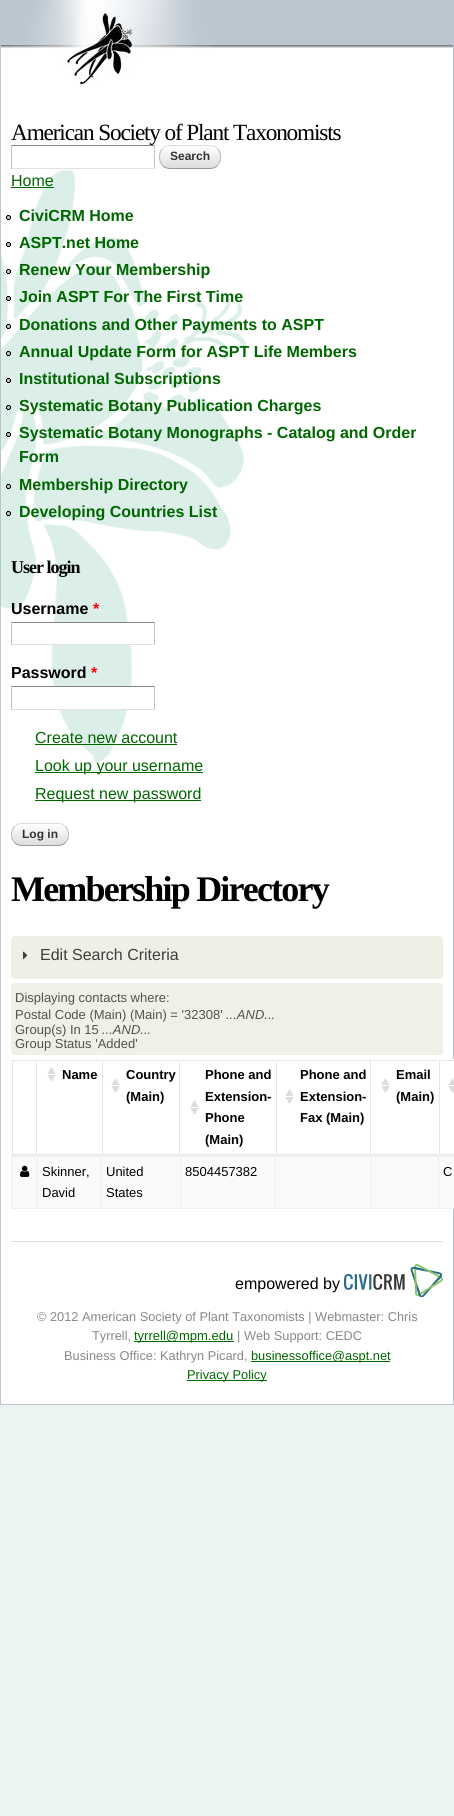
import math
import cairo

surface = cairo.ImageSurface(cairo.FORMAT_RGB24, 454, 1816)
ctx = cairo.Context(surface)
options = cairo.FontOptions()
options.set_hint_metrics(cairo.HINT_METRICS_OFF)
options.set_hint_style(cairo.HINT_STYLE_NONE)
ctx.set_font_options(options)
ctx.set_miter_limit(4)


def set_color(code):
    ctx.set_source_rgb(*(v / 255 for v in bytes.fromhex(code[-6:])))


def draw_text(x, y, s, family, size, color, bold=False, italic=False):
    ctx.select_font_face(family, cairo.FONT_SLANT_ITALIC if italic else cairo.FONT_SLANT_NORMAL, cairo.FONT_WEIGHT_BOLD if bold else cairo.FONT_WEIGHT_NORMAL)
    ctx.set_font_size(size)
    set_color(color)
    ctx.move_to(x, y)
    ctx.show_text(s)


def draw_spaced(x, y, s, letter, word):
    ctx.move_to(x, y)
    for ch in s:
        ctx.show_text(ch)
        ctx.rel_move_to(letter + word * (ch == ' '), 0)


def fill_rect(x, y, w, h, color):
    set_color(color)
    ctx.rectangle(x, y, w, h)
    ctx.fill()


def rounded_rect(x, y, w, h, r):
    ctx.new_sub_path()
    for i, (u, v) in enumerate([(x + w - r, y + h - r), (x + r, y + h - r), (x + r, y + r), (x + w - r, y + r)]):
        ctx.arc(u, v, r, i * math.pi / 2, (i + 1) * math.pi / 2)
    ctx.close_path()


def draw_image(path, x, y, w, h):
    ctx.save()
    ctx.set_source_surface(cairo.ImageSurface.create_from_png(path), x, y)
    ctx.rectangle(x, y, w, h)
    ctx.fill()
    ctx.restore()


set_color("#ebf4f1")
ctx.paint()
fill_rect(1, 48, 452, 1356, "#ffffff")
draw_image("assets/img1.png", 1, 0, 452, 48)
fill_rect(453, 0, 1, 1405, "#bbc6d0")
fill_rect(0, 0, 1, 1307, "#bbc6d0")
draw_image("assets/img2.png", 11, 0, 200, 87)
ctx.select_font_face("Liberation Serif")
ctx.set_font_size(23.25)
set_color("#000000")
draw_spaced(11, 140, "American Society of Plant Taxonomists", -1.15, 0)
fill_rect(11, 145, 144, 1, "#848484")
fill_rect(154, 145, 1, 24, "#c1c1c1")
fill_rect(11, 168, 144, 1, "#e1e1e1")
fill_rect(11, 145, 1, 24, "#c1c1c1")
ctx.save()
rounded_rect(159, 145, 62, 24, 11)
ctx.clip()
gradient = cairo.LinearGradient(160, 146, 160, 168)
gradient.add_color_stop_rgba(0, 1, 1, 1, 1)
gradient.add_color_stop_rgba(1, 0.867, 0.867, 0.867, 1)
ctx.set_source(gradient)
ctx.rectangle(159, 146, 62, 22)
ctx.fill()
ctx.restore()
ctx.new_path()
ctx.move_to(162.5, 148.5)
ctx.curve_to(164.5, 146.5, 167, 145.5, 170, 145.5)
ctx.line_to(210, 145.5)
ctx.curve_to(213, 145.5, 215.5, 146.5, 217.5, 148.5)
set_color("#dddddd")
ctx.set_line_width(1)
ctx.stroke()
ctx.new_path()
ctx.move_to(217.5, 148.5)
ctx.curve_to(221.5, 153, 221.5, 161, 217.5, 165.5)
set_color("#bbbbbb")
ctx.stroke()
ctx.new_path()
ctx.move_to(217.5, 165.5)
ctx.curve_to(215.5, 167.5, 213, 168.5, 210, 168.5)
ctx.line_to(170, 168.5)
ctx.curve_to(167, 168.5, 164.5, 167.5, 162.5, 165.5)
set_color("#999999")
ctx.stroke()
ctx.new_path()
ctx.move_to(162.5, 165.5)
ctx.curve_to(158.5, 161, 158.5, 153, 162.5, 148.5)
set_color("#bbbbbb")
ctx.stroke()
draw_text(170, 160, "Search", "Liberation Sans", 12, "#333333", bold=True)
draw_image("assets/img3.png", 1, 169, 246, 594)
draw_text(11, 186, "Home", "Liberation Sans", 16, "#006600")
fill_rect(11, 187, 43, 1, "#006600")
draw_image("assets/img4.png", 6, 215, 5, 5)
draw_text(19, 221, "CiviCRM Home", "Liberation Sans", 16, "#006600", bold=True)
draw_image("assets/img4.png", 6, 242, 5, 5)
draw_text(19, 248, "ASPT.net Home", "Liberation Sans", 16, "#006600", bold=True)
draw_image("assets/img4.png", 6, 269, 5, 5)
draw_text(19, 275, "Renew Your Membership", "Liberation Sans", 16, "#006600", bold=True)
draw_image("assets/img5.png", 6, 296, 5, 5)
draw_text(19, 302, "Join ASPT For The First Time", "Liberation Sans", 16, "#006600", bold=True)
draw_image("assets/img6.png", 6, 324, 5, 5)
draw_text(19, 330, "Donations and Other Payments to ASPT", "Liberation Sans", 16, "#006600", bold=True)
draw_image("assets/img7.png", 6, 351, 5, 5)
draw_text(19, 357, "Annual Update Form for ASPT Life Members", "Liberation Sans", 16, "#006600", bold=True)
draw_image("assets/img7.png", 6, 378, 5, 5)
draw_text(19, 384, "Institutional Subscriptions", "Liberation Sans", 16, "#006600", bold=True)
draw_image("assets/img7.png", 6, 405, 5, 5)
draw_text(19, 411, "Systematic Botany Publication Charges", "Liberation Sans", 16, "#006600", bold=True)
draw_image("assets/img8.png", 6, 432, 5, 5)
draw_text(19, 438, "Systematic Botany Monographs - Catalog and Order", "Liberation Sans", 16, "#006600", bold=True)
draw_text(19, 462, "Form", "Liberation Sans", 16, "#006600", bold=True)
draw_image("assets/img7.png", 6, 484, 5, 5)
draw_text(19, 490, "Membership Directory", "Liberation Sans", 16, "#006600", bold=True)
draw_image("assets/img7.png", 6, 511, 5, 5)
draw_text(19, 517, "Developing Countries List", "Liberation Sans", 16, "#006600", bold=True)
ctx.select_font_face("Liberation Serif", cairo.FONT_SLANT_NORMAL, cairo.FONT_WEIGHT_BOLD)
ctx.set_font_size(18)
set_color("#000000")
draw_spaced(11, 573, "User login", -1, 0)
draw_text(11, 614, "Username", "Liberation Sans", 16, "#000000", bold=True)
draw_text(93, 614, "*", "Liberation Sans", 16, "#ff0000", bold=True)
fill_rect(52, 623, 79, 21, "#ffffff")
fill_rect(11, 622, 144, 1, "#848484")
fill_rect(154, 622, 1, 23, "#c1c1c1")
fill_rect(11, 644, 144, 1, "#e1e1e1")
fill_rect(11, 622, 1, 23, "#c1c1c1")
draw_text(11, 678, "Password", "Liberation Sans", 16, "#000000", bold=True)
draw_text(91, 678, "*", "Liberation Sans", 16, "#ff0000", bold=True)
fill_rect(54, 687, 77, 22, "#ffffff")
fill_rect(11, 686, 144, 1, "#848484")
fill_rect(154, 686, 1, 24, "#c1c1c1")
fill_rect(11, 709, 144, 1, "#e1e1e1")
fill_rect(11, 686, 1, 24, "#c1c1c1")
draw_text(35, 743, "Create new account", "Liberation Sans", 16, "#006600")
fill_rect(35, 744, 142, 1, "#006600")
fill_rect(35, 772, 168, 1, "#006600")
draw_text(35, 771, "Look up your username", "Liberation Sans", 16, "#006600")
fill_rect(35, 800, 166, 1, "#006600")
draw_text(35, 799, "Request new password", "Liberation Sans", 16, "#006600")
ctx.save()
rounded_rect(11, 823, 58, 23, 11)
ctx.clip()
gradient = cairo.LinearGradient(12, 824, 12, 845)
gradient.add_color_stop_rgba(0, 1, 1, 1, 1)
gradient.add_color_stop_rgba(1, 0.867, 0.867, 0.867, 1)
ctx.set_source(gradient)
ctx.rectangle(11, 824, 58, 21)
ctx.fill()
ctx.restore()
ctx.new_path()
ctx.move_to(14.5, 826.5)
ctx.curve_to(16.5, 824.5, 19, 823.5, 22, 823.5)
ctx.line_to(58, 823.5)
ctx.curve_to(61, 823.5, 63.5, 824.5, 65.5, 826.5)
set_color("#dddddd")
ctx.stroke()
ctx.new_path()
ctx.move_to(65.5, 826.5)
ctx.curve_to(69.5, 830.5, 69.5, 838.5, 65.5, 842.5)
set_color("#bbbbbb")
ctx.stroke()
ctx.new_path()
ctx.move_to(65.5, 842.5)
ctx.curve_to(63.5, 844.5, 61, 845.5, 58, 845.5)
ctx.line_to(22, 845.5)
ctx.curve_to(19, 845.5, 16.5, 844.5, 14.5, 842.5)
set_color("#999999")
ctx.stroke()
ctx.new_path()
ctx.move_to(14.5, 842.5)
ctx.curve_to(10.5, 838.5, 10.5, 830.5, 14.5, 826.5)
set_color("#bbbbbb")
ctx.stroke()
draw_text(22, 838, "Log in", "Liberation Sans", 12, "#333333", bold=True)
ctx.select_font_face("Liberation Serif", cairo.FONT_SLANT_NORMAL, cairo.FONT_WEIGHT_BOLD)
ctx.set_font_size(36)
set_color("#000000")
draw_spaced(11, 901, "Membership Directory", -1.8, 0)
set_color("#efefe5")
rounded_rect(11, 936, 432, 43, 4)
ctx.fill()
draw_image("assets/img9.png", 23, 951, 5, 8)
draw_text(40, 960, "Edit Search Criteria", "Liberation Sans", 16, "#3e3e3e")
set_color("#f0f0e8")
rounded_rect(11, 983, 432, 72, 4)
ctx.fill()
draw_text(15, 1002, "Displaying contacts where:", "Liberation Sans", 13, "#52534d")
draw_text(15, 1019, "Postal Code (Main) (Main) = '32308'", "Liberation Sans", 13, "#52534d")
draw_text(226, 1019, "...AND...", "Liberation Sans", 13, "#52534d", italic=True)
draw_text(15, 1034, "Group(s) In 15", "Liberation Sans", 13, "#52534d")
draw_text(102, 1034, "...AND...", "Liberation Sans", 13, "#52534d", italic=True)
draw_text(15, 1048, "Group Status 'Added'", "Liberation Sans", 13, "#52534d")
fill_rect(11, 1208, 443, 1, "#efefef")
fill_rect(11, 1157, 1, 52, "#efefef")
fill_rect(12, 1060, 442, 95, "#e6e6e6")
fill_rect(440, 1061, 14, 93, "#ffffff")
fill_rect(453, 1059, 1, 1, "#ffffff")
fill_rect(12, 1157, 442, 51, "#fafafa")
fill_rect(438, 1155, 1, 54, "#efefef")
fill_rect(438, 1059, 1, 97, "#ffffff")
fill_rect(37, 1155, 1, 54, "#efefef")
fill_rect(37, 1059, 1, 97, "#ffffff")
fill_rect(101, 1155, 1, 54, "#efefef")
fill_rect(101, 1059, 1, 97, "#ffffff")
fill_rect(180, 1155, 1, 54, "#efefef")
fill_rect(180, 1059, 1, 97, "#ffffff")
fill_rect(275, 1155, 1, 54, "#efefef")
fill_rect(275, 1059, 1, 97, "#ffffff")
fill_rect(371, 1155, 1, 54, "#efefef")
fill_rect(371, 1059, 1, 97, "#ffffff")
fill_rect(11, 1155, 443, 2, "#efefef")
draw_image("assets/img10.png", 448, 1078, 6, 15)
fill_rect(13, 1061, 23, 93, "#ffffff")
fill_rect(38, 1061, 63, 93, "#ffffff")
draw_image("assets/img11.png", 47, 1067, 9, 15)
draw_text(62, 1079, "Name", "Liberation Sans", 13, "#000000", bold=True)
fill_rect(103, 1061, 76, 93, "#ffffff")
draw_image("assets/img11.png", 111, 1078, 9, 15)
draw_text(126, 1079, "Country", "Liberation Sans", 13, "#000000", bold=True)
draw_text(126, 1101, "(Main)", "Liberation Sans", 13, "#000000", bold=True)
fill_rect(181, 1061, 94, 93, "#ffffff")
draw_image("assets/img11.png", 190, 1100, 9, 15)
draw_text(205, 1079, "Phone and", "Liberation Sans", 13, "#000000", bold=True)
draw_text(205, 1101, "Extension-", "Liberation Sans", 13, "#000000", bold=True)
draw_text(205, 1122, "Phone", "Liberation Sans", 13, "#000000", bold=True)
draw_text(205, 1144, "(Main)", "Liberation Sans", 13, "#000000", bold=True)
fill_rect(277, 1061, 93, 93, "#ffffff")
draw_image("assets/img11.png", 285, 1089, 9, 15)
draw_text(300, 1079, "Phone and", "Liberation Sans", 13, "#000000", bold=True)
draw_text(300, 1101, "Extension-", "Liberation Sans", 13, "#000000", bold=True)
draw_text(300, 1122, "Fax (Main)", "Liberation Sans", 13, "#000000", bold=True)
fill_rect(372, 1061, 66, 93, "#ffffff")
draw_image("assets/img11.png", 381, 1078, 9, 15)
draw_text(396, 1079, "Email", "Liberation Sans", 13, "#000000", bold=True)
draw_text(396, 1101, "(Main)", "Liberation Sans", 13, "#000000", bold=True)
draw_image("assets/img12.png", 20, 1165, 10, 12)
draw_text(42, 1176, "Skinner,", "Liberation Sans", 13, "#000000")
draw_text(42, 1197, "David", "Liberation Sans", 13, "#000000")
draw_text(106, 1176, "United", "Liberation Sans", 13, "#000000")
draw_text(106, 1197, "States", "Liberation Sans", 13, "#000000")
draw_text(185, 1176, "8504457382", "Liberation Sans", 13, "#000000")
draw_text(443, 1176, "C", "Liberation Sans", 13, "#000000")
fill_rect(11, 1241, 432, 1, "#dddddd")
draw_text(235, 1289, "empowered by", "Liberation Sans", 16, "#000000")
draw_image("assets/img13.png", 344, 1264, 99, 33)
fill_rect(0, 1404, 454, 1, "#bbc6d0")
fill_rect(0, 1307, 1, 98, "#bbc6d0")
draw_text(37, 1321, "© 2012 American Society of Plant Taxonomists | Webmaster: Chris", "Liberation Sans", 12.8, "#888888")
draw_text(92, 1340, "Tyrrell,", "Liberation Sans", 12.8, "#888888")
fill_rect(134, 1341, 100, 1, "#006600")
draw_text(134, 1340, "tyrrell@mpm.edu", "Liberation Sans", 13, "#006600")
draw_text(237, 1340, "| Web Support: CEDC", "Liberation Sans", 12.8, "#888888")
draw_text(64, 1360, "Business Office: Kathryn Picard,", "Liberation Sans", 12.8, "#888888")
fill_rect(251, 1361, 139, 1, "#006600")
draw_text(251, 1360, "businessoffice@aspt.net", "Liberation Sans", 12.8, "#006600")
fill_rect(187, 1380, 80, 1, "#006600")
draw_text(187, 1379, "Privacy Policy", "Liberation Sans", 12.8, "#006600")
surface.write_to_png("output.png")
